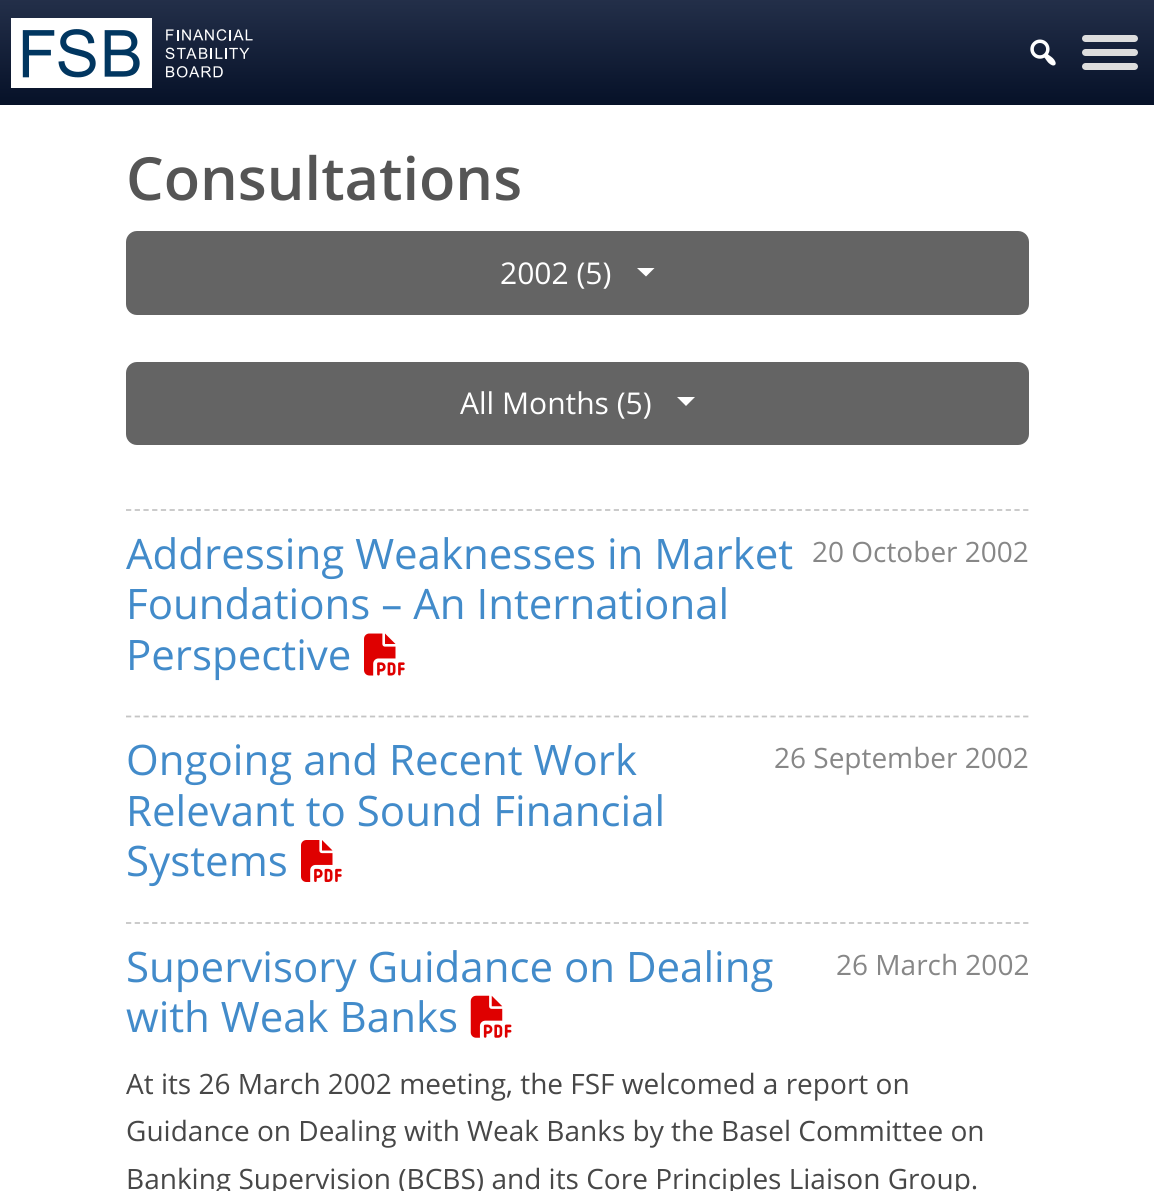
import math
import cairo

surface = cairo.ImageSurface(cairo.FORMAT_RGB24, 1154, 1191)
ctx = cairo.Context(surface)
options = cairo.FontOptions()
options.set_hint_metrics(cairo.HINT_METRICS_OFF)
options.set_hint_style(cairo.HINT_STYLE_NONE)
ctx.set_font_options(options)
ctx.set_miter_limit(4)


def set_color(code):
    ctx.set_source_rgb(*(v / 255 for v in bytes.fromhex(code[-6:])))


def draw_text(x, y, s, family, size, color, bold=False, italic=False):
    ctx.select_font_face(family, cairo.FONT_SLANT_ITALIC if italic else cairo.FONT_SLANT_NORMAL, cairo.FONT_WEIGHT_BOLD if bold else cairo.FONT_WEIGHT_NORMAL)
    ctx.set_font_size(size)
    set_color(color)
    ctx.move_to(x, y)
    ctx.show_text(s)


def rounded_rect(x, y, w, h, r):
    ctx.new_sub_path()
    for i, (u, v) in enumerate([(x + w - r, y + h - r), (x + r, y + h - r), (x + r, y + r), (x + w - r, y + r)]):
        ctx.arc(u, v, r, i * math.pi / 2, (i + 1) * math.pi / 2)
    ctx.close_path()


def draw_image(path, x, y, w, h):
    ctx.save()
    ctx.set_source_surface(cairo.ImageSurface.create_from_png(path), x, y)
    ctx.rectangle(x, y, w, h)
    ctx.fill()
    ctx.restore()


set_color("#ffffff")
ctx.paint()
gradient = cairo.LinearGradient(578, 0, 578, 105)
gradient.add_color_stop_rgba(0, 0.137, 0.184, 0.286, 1)
gradient.add_color_stop_rgba(1, 0.024, 0.067, 0.157, 1)
ctx.set_source(gradient)
ctx.rectangle(0, 0, 1154, 105)
ctx.fill()
draw_image("assets/img1.png", 11, 18, 242, 70)
draw_image("assets/img2.png", 1030, 39, 26, 27)
set_color("#dddddd")
rounded_rect(1082, 35, 56, 7, 3.5)
ctx.fill()
rounded_rect(1082, 49, 56, 7, 3.5)
ctx.fill()
rounded_rect(1082, 63, 56, 7, 3.5)
ctx.fill()
draw_text(126, 200, "Consultations", "Open Sans SemiBold", 59.5, "#555555")
set_color("#646464")
rounded_rect(127, 232, 901, 82, 10)
ctx.fill_preserve()
ctx.stroke()
draw_text(500, 284, "2002 (5)", "Open Sans", 30, "#ffffff")
ctx.new_path()
ctx.move_to(637, 268)
ctx.line_to(654.5, 268)
ctx.line_to(646, 276.5)
ctx.close_path()
ctx.fill()
set_color("#646464")
rounded_rect(127, 363, 901, 81, 10)
ctx.fill_preserve()
ctx.stroke()
draw_text(460, 414, "All Months (5)", "Open Sans", 30, "#ffffff")
ctx.new_path()
ctx.move_to(677, 397)
ctx.line_to(695, 397)
ctx.line_to(686, 406)
ctx.close_path()
ctx.fill()
ctx.new_path()
ctx.move_to(126, 510)
ctx.line_to(1029, 510)
set_color("#c5c5c5")
ctx.set_line_width(1.8)
ctx.set_dash([5.25, 3.46])
ctx.stroke()
draw_text(126, 569, "Addressing Weaknesses in Market", "Open Sans", 42, "#428bca")
draw_text(126, 619, "Foundations – An International", "Open Sans", 42, "#428bca")
draw_text(126, 670, "Perspective", "Open Sans", 42, "#428bca")
draw_image("assets/img3.png", 364, 633, 41, 43)
draw_text(812, 562, "20 October 2002", "Open Sans", 28, "#878787")
ctx.new_path()
ctx.move_to(126, 716.5)
ctx.line_to(1029, 716.5)
set_color("#c5c5c5")
ctx.stroke()
draw_text(126, 775, "Ongoing and Recent Work", "Open Sans", 42, "#428bca")
draw_text(126, 826, "Relevant to Sound Financial", "Open Sans", 42, "#428bca")
draw_text(126, 876, "Systems", "Open Sans", 42, "#428bca")
draw_image("assets/img4.png", 301, 840, 41, 42)
draw_text(774, 768, "26 September 2002", "Open Sans", 28, "#878787")
ctx.new_path()
ctx.move_to(126, 923)
ctx.line_to(1029, 923)
set_color("#c5c5c5")
ctx.stroke()
draw_text(126, 982, "Supervisory Guidance on Dealing", "Open Sans", 42, "#428bca")
draw_text(126, 1032, "with Weak Banks", "Open Sans", 42, "#428bca")
draw_image("assets/img5.png", 470, 995, 42, 43)
draw_text(836, 975, "26 March 2002", "Open Sans", 28, "#878787")
draw_text(126, 1094, "At its 26 March 2002 meeting, the FSF welcomed a report on", "Open Sans", 28, "#474747")
draw_text(126, 1141, "Guidance on Dealing with Weak Banks by the Basel Committee on", "Open Sans", 28, "#474747")
draw_text(126, 1189, "Banking Supervision (BCBS) and its Core Principles Liaison Group.", "Open Sans", 28, "#474747")
surface.write_to_png("output.png")
